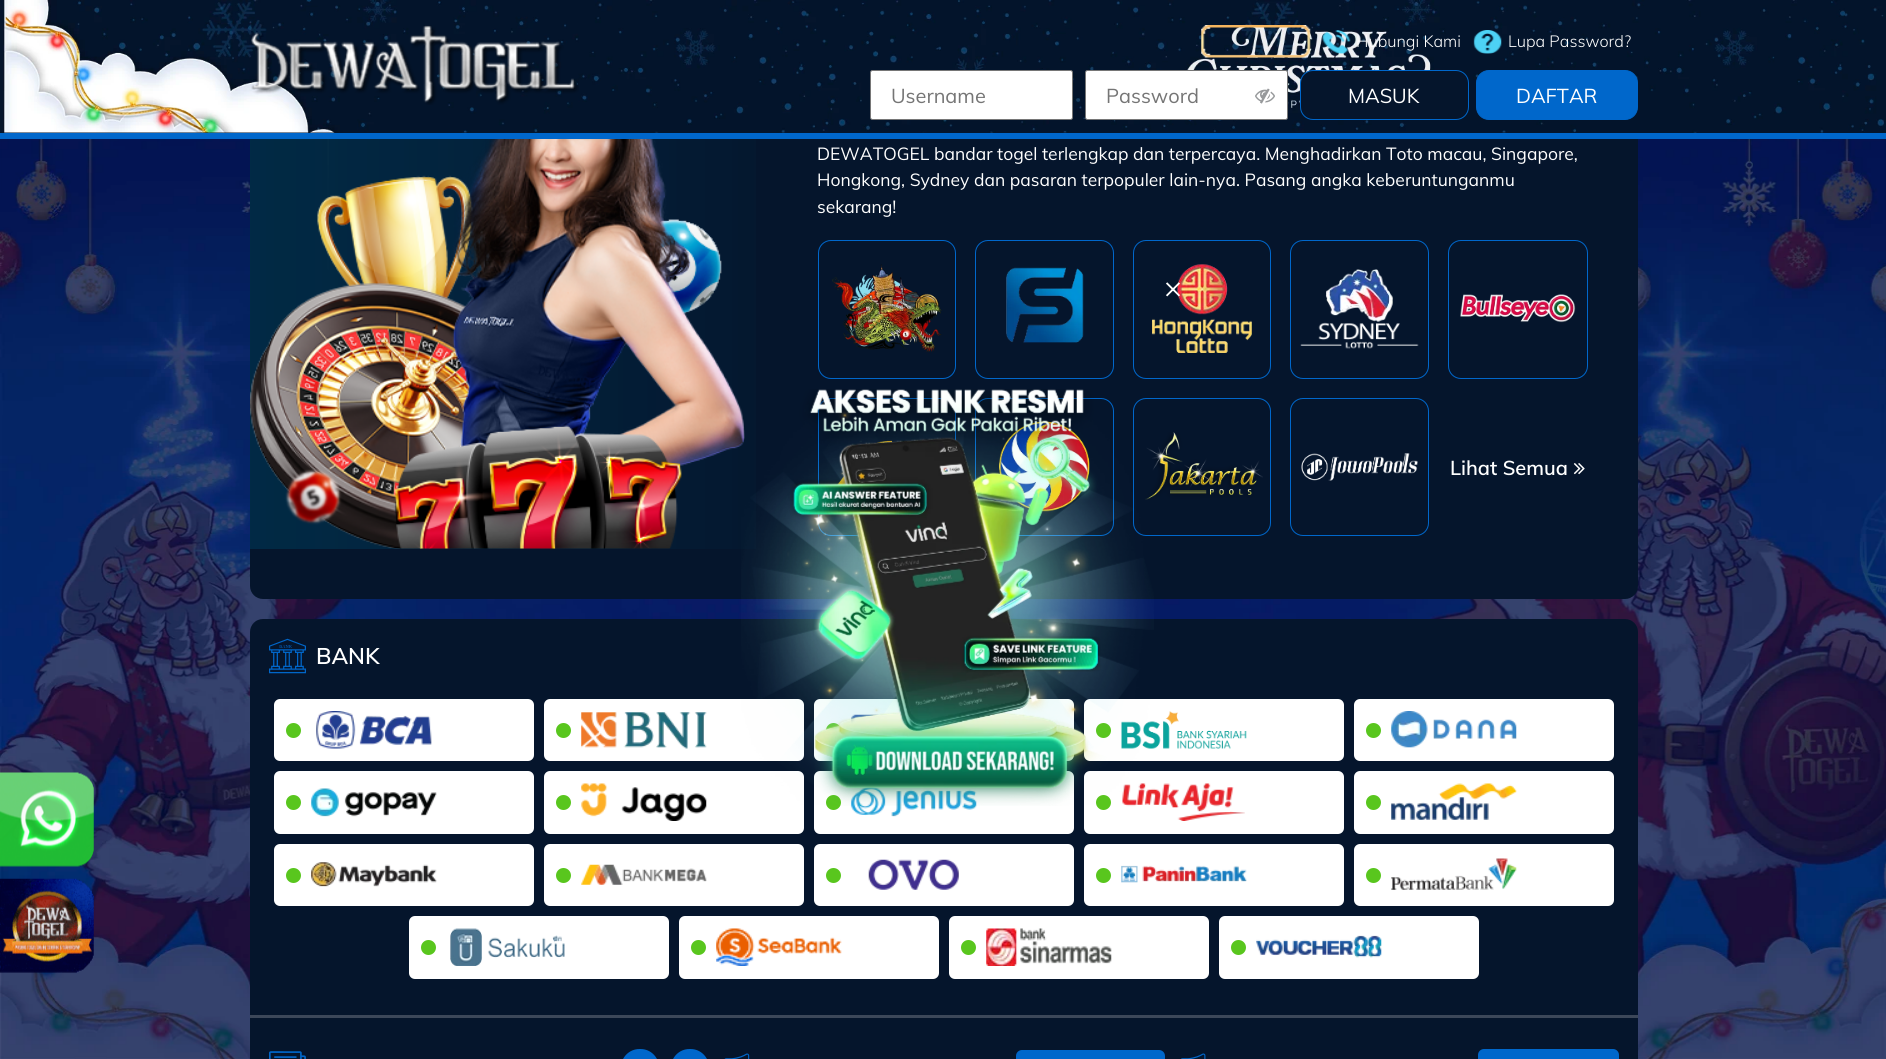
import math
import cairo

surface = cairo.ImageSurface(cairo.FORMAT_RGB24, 1886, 1059)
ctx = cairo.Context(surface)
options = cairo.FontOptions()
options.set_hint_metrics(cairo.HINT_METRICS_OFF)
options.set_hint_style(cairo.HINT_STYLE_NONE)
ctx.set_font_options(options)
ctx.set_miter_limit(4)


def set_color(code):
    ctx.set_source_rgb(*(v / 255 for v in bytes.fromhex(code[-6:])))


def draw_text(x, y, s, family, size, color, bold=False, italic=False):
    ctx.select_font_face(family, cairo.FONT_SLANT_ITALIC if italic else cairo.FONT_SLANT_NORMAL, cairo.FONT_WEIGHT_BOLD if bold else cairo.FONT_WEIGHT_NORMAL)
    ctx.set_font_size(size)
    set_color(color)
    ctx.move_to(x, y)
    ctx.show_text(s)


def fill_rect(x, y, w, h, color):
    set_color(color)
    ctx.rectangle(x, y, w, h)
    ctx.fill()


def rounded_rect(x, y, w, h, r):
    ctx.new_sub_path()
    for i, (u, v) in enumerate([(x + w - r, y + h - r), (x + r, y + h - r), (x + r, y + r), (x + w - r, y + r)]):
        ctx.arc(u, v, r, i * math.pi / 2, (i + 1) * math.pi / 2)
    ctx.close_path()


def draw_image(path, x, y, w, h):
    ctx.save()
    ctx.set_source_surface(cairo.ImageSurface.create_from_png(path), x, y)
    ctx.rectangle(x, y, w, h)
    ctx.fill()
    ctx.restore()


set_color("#ffffff")
ctx.paint()
draw_image("assets/img1.png", 0, 139, 1886, 920)
draw_image("assets/img8.png", 0, 139, 1886, 920)
set_color("#05152c")
rounded_rect(250, -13, 1388, 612, 13)
ctx.fill()
fill_rect(0, 0, 1886, 133, "#05152c")
draw_image("assets/img2.png", 3, 0, 1883, 133)
fill_rect(0, 133, 1886, 6, "#0067cb")
draw_image("assets/img3.png", 251, 25, 328, 80)
draw_image("assets/img4.png", 1201, 25, 110, 33)
draw_image("assets/img5.png", 1322, 30, 29, 24)
draw_text(1356, 47, "Hubungi Kami", "Muli Light", 16.25, "#ffffff")
draw_image("assets/img6.png", 1473, 30, 29, 24)
draw_text(1508, 47, "Lupa Password?", "Muli Light", 16.25, "#ffffff")
rounded_rect(870.5, 70.5, 202, 49, 2)
ctx.fill_preserve()
set_color("#767676")
ctx.set_line_width(1)
ctx.stroke()
draw_text(891, 103, "Username", "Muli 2", 20, "#757575")
set_color("#ffffff")
rounded_rect(1085.5, 70.5, 202, 49, 2)
ctx.fill_preserve()
set_color("#767676")
ctx.stroke()
draw_text(1106, 103, "Password", "Muli 2", 20, "#757575")
draw_image("assets/img7.png", 1255, 88, 20, 16)
set_color("#05152c")
rounded_rect(1300.5, 70.5, 168, 49, 12.5)
ctx.fill_preserve()
set_color("#0067cb")
ctx.stroke()
draw_text(1348, 103, "MASUK", "Muli 2", 20, "#ffffff")
set_color("#0067cb")
rounded_rect(1476.5, 70.5, 161, 49, 12.5)
ctx.fill_preserve()
ctx.stroke()
draw_text(1516, 103, "DAFTAR", "Muli 2", 20, "#ffffff")
gradient = cairo.LinearGradient(249, 293, 806, 293)
gradient.add_color_stop_rgba(0, 0, 0.184, 0.294, 0.8)
gradient.add_color_stop_rgba(1, 0.02, 0.082, 0.173, 0.99)
ctx.set_source(gradient)
ctx.rectangle(250, 139, 506, 410)
ctx.fill()
draw_image("assets/img9.png", 250, 139, 495, 410)
draw_text(817, 160, "DEWATOGEL bandar togel terlengkap dan terpercaya. Menghadirkan Toto macau, Singapore,", "Muli", 17.5, "#ffffff")
draw_text(817, 186, "Hongkong, Sydney dan pasaran terpopuler lain-nya. Pasang angka keberuntunganmu", "Muli", 17.5, "#ffffff")
draw_text(817, 213, "sekarang!", "Muli", 17.5, "#ffffff")
rounded_rect(818.5, 240.5, 137, 138, 12.5)
set_color("#0067cb")
ctx.stroke()
draw_image("assets/img10.png", 832, 264, 110, 88)
rounded_rect(975.5, 240.5, 138, 138, 12.5)
ctx.stroke()
draw_image("assets/img11.png", 1006, 267, 78, 76)
rounded_rect(1133.5, 240.5, 137, 138, 12.5)
ctx.stroke()
draw_image("assets/img12.png", 1152, 264, 100, 89)
rounded_rect(1290.5, 240.5, 138, 138, 12.5)
ctx.stroke()
draw_image("assets/img13.png", 1300, 269, 119, 80)
rounded_rect(1448.5, 240.5, 139, 138, 12.5)
ctx.stroke()
draw_image("assets/img14.png", 1460, 294, 116, 29)
rounded_rect(818.5, 398.5, 137, 137, 12.5)
ctx.stroke()
draw_image("assets/img15.png", 837, 440, 83, 45)
rounded_rect(975.5, 398.5, 138, 137, 12.5)
ctx.stroke()
draw_image("assets/img16.png", 999, 421, 91, 91)
rounded_rect(1133.5, 398.5, 137, 137, 12.5)
ctx.stroke()
draw_image("assets/img17.png", 1145, 432, 118, 68)
rounded_rect(1290.5, 398.5, 138, 137, 12.5)
ctx.stroke()
draw_image("assets/img18.png", 1301, 453, 117, 28)
draw_text(1450, 475, "Lihat Semua", "Muli SemiBold", 20, "#ffffff")
draw_image("assets/img19.png", 1573, 463, 12, 12)
draw_text(1164, 298, "×", "Muli 2", 30, "#ffffff")
set_color("#05152c")
rounded_rect(250, 619, 1388, 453, 13)
ctx.fill()
set_color("#ffffff")
rounded_rect(544, 699, 260, 62, 6)
ctx.fill()
rounded_rect(814, 699, 260, 62, 6)
ctx.fill()
draw_image("assets/img24.png", 851, 714, 28, 10)
set_color("#59c61e")
ctx.arc(833.5, 730.5, 7.5, 0, 2 * math.pi)
ctx.fill()
set_color("#ffffff")
rounded_rect(1084, 699, 260, 62, 6)
ctx.fill()
set_color("#59c61e")
ctx.arc(1103.5, 730.5, 7.5, 0, 2 * math.pi)
ctx.fill()
draw_image("assets/img25.png", 1121, 711, 126, 38)
set_color("#ffffff")
rounded_rect(544, 771, 260, 63, 6)
ctx.fill()
rounded_rect(814, 771, 260, 63, 6)
ctx.fill()
set_color("#59c61e")
ctx.arc(833.5, 802.5, 7.5, 0, 2 * math.pi)
ctx.fill()
draw_image("assets/img29.png", 851, 787, 126, 30)
set_color("#ffffff")
rounded_rect(1084, 771, 260, 63, 6)
ctx.fill()
set_color("#59c61e")
ctx.arc(1103.5, 802.5, 7.5, 0, 2 * math.pi)
ctx.fill()
draw_image("assets/img30.png", 1122, 783, 123, 38)
draw_image("assets/img20.png", 741, 389, 413, 417)
draw_image("assets/img21.png", 269, 638, 37, 36)
draw_text(316, 664, "BANK", "Muli SemiBold", 22.5, "#ffffff")
rounded_rect(274, 699, 260, 62, 6)
ctx.fill()
set_color("#59c61e")
ctx.arc(293.5, 730.5, 7.5, 0, 2 * math.pi)
ctx.fill()
draw_image("assets/img22.png", 316, 711, 116, 38)
ctx.arc(563.5, 730.5, 7.5, 0, 2 * math.pi)
ctx.fill()
draw_image("assets/img23.png", 581, 712, 126, 37)
set_color("#ffffff")
rounded_rect(1354, 699, 260, 62, 6)
ctx.fill()
set_color("#59c61e")
ctx.arc(1373.5, 730.5, 7.5, 0, 2 * math.pi)
ctx.fill()
draw_image("assets/img26.png", 1391, 711, 126, 37)
set_color("#ffffff")
rounded_rect(274, 771, 260, 63, 6)
ctx.fill()
set_color("#59c61e")
ctx.arc(293.5, 802.5, 7.5, 0, 2 * math.pi)
ctx.fill()
draw_image("assets/img27.png", 311, 788, 126, 29)
ctx.arc(563.5, 802.5, 7.5, 0, 2 * math.pi)
ctx.fill()
draw_image("assets/img28.png", 581, 783, 126, 38)
set_color("#ffffff")
rounded_rect(1354, 771, 260, 63, 6)
ctx.fill()
set_color("#59c61e")
ctx.arc(1373.5, 802.5, 7.5, 0, 2 * math.pi)
ctx.fill()
draw_image("assets/img31.png", 1391, 783, 126, 37)
set_color("#ffffff")
rounded_rect(274, 844, 260, 62, 6)
ctx.fill()
set_color("#59c61e")
ctx.arc(293.5, 875.5, 7.5, 0, 2 * math.pi)
ctx.fill()
draw_image("assets/img32.png", 311, 862, 126, 25)
set_color("#ffffff")
rounded_rect(544, 844, 260, 62, 6)
ctx.fill()
set_color("#59c61e")
ctx.arc(563.5, 875.5, 7.5, 0, 2 * math.pi)
ctx.fill()
draw_image("assets/img33.png", 581, 864, 126, 21)
set_color("#ffffff")
rounded_rect(814, 844, 260, 62, 6)
ctx.fill()
set_color("#59c61e")
ctx.arc(833.5, 875.5, 7.5, 0, 2 * math.pi)
ctx.fill()
draw_image("assets/img34.png", 868, 859, 91, 31)
set_color("#ffffff")
rounded_rect(1084, 844, 260, 62, 6)
ctx.fill()
set_color("#59c61e")
ctx.arc(1103.5, 875.5, 7.5, 0, 2 * math.pi)
ctx.fill()
draw_image("assets/img35.png", 1121, 865, 126, 18)
set_color("#ffffff")
rounded_rect(1354, 844, 260, 62, 6)
ctx.fill()
set_color("#59c61e")
ctx.arc(1373.5, 875.5, 7.5, 0, 2 * math.pi)
ctx.fill()
draw_image("assets/img36.png", 1391, 858, 126, 32)
set_color("#ffffff")
rounded_rect(409, 916, 260, 63, 6)
ctx.fill()
set_color("#59c61e")
ctx.arc(428.5, 947.5, 7.5, 0, 2 * math.pi)
ctx.fill()
draw_image("assets/img37.png", 450, 928, 115, 38)
set_color("#ffffff")
rounded_rect(679, 916, 260, 63, 6)
ctx.fill()
set_color("#59c61e")
ctx.arc(698.5, 947.5, 7.5, 0, 2 * math.pi)
ctx.fill()
draw_image("assets/img38.png", 716, 928, 126, 38)
set_color("#ffffff")
rounded_rect(949, 916, 260, 63, 6)
ctx.fill()
set_color("#59c61e")
ctx.arc(968.5, 947.5, 7.5, 0, 2 * math.pi)
ctx.fill()
draw_image("assets/img39.png", 986, 928, 126, 38)
set_color("#ffffff")
rounded_rect(1219, 916, 260, 63, 6)
ctx.fill()
set_color("#59c61e")
ctx.arc(1238.5, 947.5, 7.5, 0, 2 * math.pi)
ctx.fill()
draw_image("assets/img40.png", 1256, 935, 126, 23)
fill_rect(250, 1015, 1388, 3, "#3c4759")
draw_image("assets/img41.png", 269, 1051, 37, 8)
set_color("#0067cb")
rounded_rect(621, 1049, 38, 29, 18.5)
ctx.fill()
rounded_rect(671, 1049, 38, 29, 18.5)
ctx.fill()
draw_image("assets/img42.png", 724, 1053, 26, 6)
rounded_rect(1016, 1050, 149, 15, 6)
ctx.fill()
draw_image("assets/img43.png", 1181, 1053, 25, 6)
rounded_rect(1478, 1049, 141, 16, 6)
ctx.fill()
draw_image("assets/img44.png", 0, 772, 94, 95)
draw_image("assets/img45.png", 0, 878, 94, 95)
surface.write_to_png("output.png")
